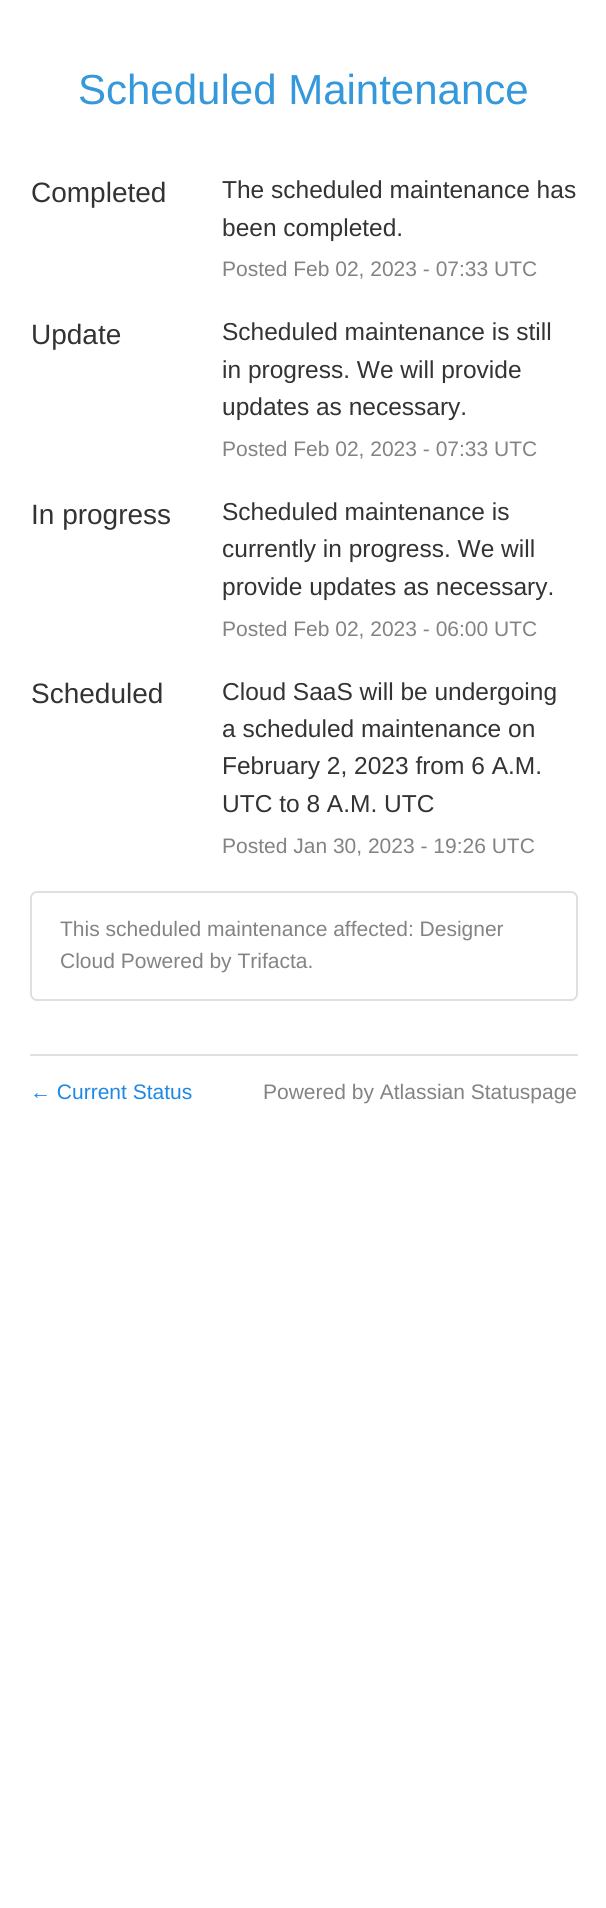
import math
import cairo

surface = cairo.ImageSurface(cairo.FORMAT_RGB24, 606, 1908)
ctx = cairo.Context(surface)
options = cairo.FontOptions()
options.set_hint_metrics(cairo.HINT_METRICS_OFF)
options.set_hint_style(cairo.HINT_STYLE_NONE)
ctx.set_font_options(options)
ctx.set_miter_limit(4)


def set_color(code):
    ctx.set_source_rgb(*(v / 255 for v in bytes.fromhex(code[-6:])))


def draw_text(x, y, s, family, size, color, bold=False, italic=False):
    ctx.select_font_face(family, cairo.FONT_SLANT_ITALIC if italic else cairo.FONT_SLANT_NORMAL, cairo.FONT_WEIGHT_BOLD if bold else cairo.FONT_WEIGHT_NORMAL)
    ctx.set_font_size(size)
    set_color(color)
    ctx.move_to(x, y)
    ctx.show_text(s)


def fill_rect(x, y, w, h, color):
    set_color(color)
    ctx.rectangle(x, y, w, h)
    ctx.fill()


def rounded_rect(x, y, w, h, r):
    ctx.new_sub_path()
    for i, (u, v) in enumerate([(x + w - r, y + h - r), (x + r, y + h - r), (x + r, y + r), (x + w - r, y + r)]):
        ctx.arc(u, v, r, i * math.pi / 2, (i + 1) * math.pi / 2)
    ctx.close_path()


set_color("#ffffff")
ctx.paint()
draw_text(78, 104, "Scheduled Maintenance", "Liberation Sans", 42, "#3498db")
draw_text(31, 202, "Completed", "Liberation Sans", 28, "#333333")
draw_text(222, 198, "The scheduled maintenance has", "Liberation Sans", 24.5, "#333333")
draw_text(222, 236, "been completed.", "Liberation Sans", 24.5, "#333333")
draw_text(222, 276, "Posted Feb 02, 2023 - 07:33 UTC", "Liberation Sans", 21, "#858282")
draw_text(31, 344, "Update", "Liberation Sans", 28, "#333333")
draw_text(222, 340, "Scheduled maintenance is still", "Liberation Sans", 24.5, "#333333")
draw_text(222, 378, "in progress. We will provide", "Liberation Sans", 24.5, "#333333")
draw_text(222, 415, "updates as necessary.", "Liberation Sans", 24.5, "#333333")
draw_text(222, 456, "Posted Feb 02, 2023 - 07:33 UTC", "Liberation Sans", 21, "#858282")
draw_text(31, 524, "In progress", "Liberation Sans", 28, "#333333")
draw_text(222, 520, "Scheduled maintenance is", "Liberation Sans", 24.5, "#333333")
draw_text(222, 557, "currently in progress. We will", "Liberation Sans", 24.5, "#333333")
draw_text(222, 595, "provide updates as necessary.", "Liberation Sans", 24.5, "#333333")
draw_text(222, 636, "Posted Feb 02, 2023 - 06:00 UTC", "Liberation Sans", 21, "#858282")
draw_text(31, 703, "Scheduled", "Liberation Sans", 28, "#333333")
draw_text(222, 700, "Cloud SaaS will be undergoing", "Liberation Sans", 24.5, "#333333")
draw_text(222, 737, "a scheduled maintenance on", "Liberation Sans", 24.5, "#333333")
draw_text(222, 774, "February 2, 2023 from 6 A.M.", "Liberation Sans", 24.5, "#333333")
draw_text(222, 812, "UTC to 8 A.M. UTC", "Liberation Sans", 24.5, "#333333")
draw_text(222, 853, "Posted Jan 30, 2023 - 19:26 UTC", "Liberation Sans", 21, "#858282")
rounded_rect(31, 892, 546, 108, 6)
set_color("#e0e0e0")
ctx.stroke()
draw_text(60, 936, "This scheduled maintenance affected: Designer", "Liberation Sans", 21, "#858282")
draw_text(60, 968, "Cloud Powered by Trifacta.", "Liberation Sans", 21, "#858282")
fill_rect(30, 1054, 548, 2, "#e0e0e0")
draw_text(30, 1099, "← Current Status", "Liberation Sans", 21, "#1e88e5")
draw_text(263, 1099, "Powered by Atlassian Statuspage", "Liberation Sans", 21, "#858282")
surface.write_to_png("output.png")
